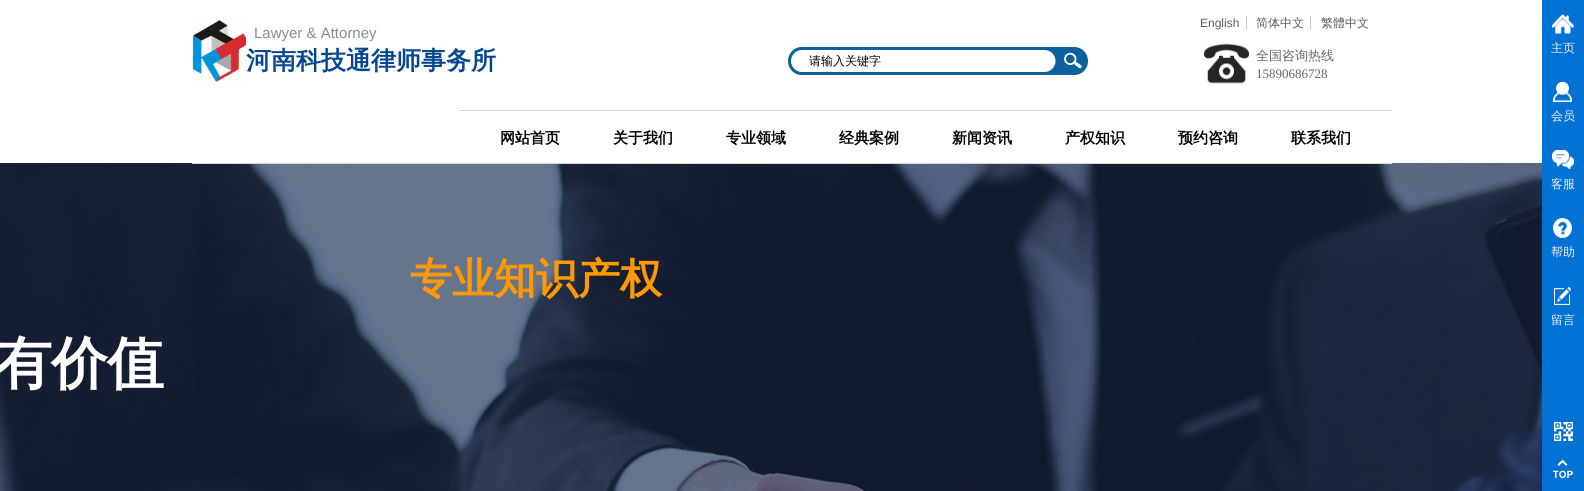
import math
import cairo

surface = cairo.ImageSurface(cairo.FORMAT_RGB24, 1584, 491)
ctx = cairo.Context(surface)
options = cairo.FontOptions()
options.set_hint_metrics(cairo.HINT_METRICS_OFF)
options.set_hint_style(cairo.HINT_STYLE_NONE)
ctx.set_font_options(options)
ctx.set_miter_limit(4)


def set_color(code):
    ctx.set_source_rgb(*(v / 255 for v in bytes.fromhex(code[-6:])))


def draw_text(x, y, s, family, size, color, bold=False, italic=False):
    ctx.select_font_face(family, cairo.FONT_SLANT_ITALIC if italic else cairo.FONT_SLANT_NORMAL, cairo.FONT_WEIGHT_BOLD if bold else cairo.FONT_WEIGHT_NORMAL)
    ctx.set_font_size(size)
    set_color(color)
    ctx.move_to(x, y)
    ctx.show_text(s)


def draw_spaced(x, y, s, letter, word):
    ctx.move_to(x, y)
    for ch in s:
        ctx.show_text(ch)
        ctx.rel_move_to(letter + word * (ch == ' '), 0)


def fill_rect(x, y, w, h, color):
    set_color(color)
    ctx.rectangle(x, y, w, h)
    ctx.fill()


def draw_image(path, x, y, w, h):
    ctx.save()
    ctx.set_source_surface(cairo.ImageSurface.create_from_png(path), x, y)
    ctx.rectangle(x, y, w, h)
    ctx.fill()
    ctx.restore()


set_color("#ffffff")
ctx.paint()
fill_rect(1246, 16, 1, 14, "#c6c6c6")
draw_text(1200, 27, "English", "Liberation Sans", 12, "#5a5a5a")
fill_rect(1310, 16, 1, 14, "#c6c6c6")
draw_text(1256, 27, "简体中文", "WenQuanYi Zen Hei Medium", 12, "#5a5a5a")
draw_text(1321, 27, "繁體中文", "WenQuanYi Zen Hei Medium", 12, "#5a5a5a")
draw_image("assets/img1.png", 192, 19, 54, 63)
draw_text(254, 38, "Lawyer & Attorney", "Liberation Sans", 15, "#818d9a")
draw_text(246, 69, "河南科技通律师事务所", "WenQuanYi Zen Hei", 25, "#044692", bold=True)
draw_image("assets/img2.png", 788, 47, 300, 28)
draw_text(809, 65, "请输入关键字", "WenQuanYi Zen Hei Medium", 12, "#000000")
draw_image("assets/img3.png", 1204, 43, 46, 41)
draw_text(1256, 60, "全国咨询热线", "WenQuanYi Zen Hei Medium", 13, "#666666")
draw_text(1256, 78, "15890686728", "Liberation Serif", 13, "#666666")
fill_rect(459, 110, 933, 1, "#d9d9d9")
draw_text(500, 143, "网站首页", "WenQuanYi Zen Hei", 15, "#000000", bold=True)
draw_text(613, 143, "关于我们", "WenQuanYi Zen Hei", 15, "#000000", bold=True)
draw_text(726, 143, "专业领域", "WenQuanYi Zen Hei", 15, "#000000", bold=True)
draw_text(839, 143, "经典案例", "WenQuanYi Zen Hei", 15, "#000000", bold=True)
draw_text(952, 143, "新闻资讯", "WenQuanYi Zen Hei", 15, "#000000", bold=True)
draw_text(1065, 143, "产权知识", "WenQuanYi Zen Hei", 15, "#000000", bold=True)
draw_text(1178, 143, "预约咨询", "WenQuanYi Zen Hei", 15, "#000000", bold=True)
draw_text(1291, 143, "联系我们", "WenQuanYi Zen Hei", 15, "#000000", bold=True)
draw_image("assets/img4.png", 0, 163, 1542, 328)
fill_rect(192, 163, 1200, 1, "#d9d9d9")
draw_text(410, 293, "专业知识产权", "WenQuanYi Zen Hei", 42, "#ff9900", bold=True)
ctx.set_font_size(57)
set_color("#ffffff")
draw_spaced(-5, 383, "有价值", -1, 0)
fill_rect(1542, 0, 42, 491, "#0272d4")
draw_image("assets/img5.png", 1552, 14, 22, 20)
draw_text(1551, 52, "主页", "WenQuanYi Zen Hei Medium", 12, "#efefef")
draw_image("assets/img6.png", 1553, 82, 19, 20)
draw_text(1551, 120, "会员", "WenQuanYi Zen Hei Medium", 12, "#efefef")
draw_image("assets/img7.png", 1552, 150, 22, 19)
draw_text(1551, 188, "客服", "WenQuanYi Zen Hei Medium", 12, "#efefef")
draw_image("assets/img8.png", 1553, 218, 19, 20)
draw_text(1551, 256, "帮助", "WenQuanYi Zen Hei Medium", 12, "#efefef")
draw_image("assets/img9.png", 1554, 287, 17, 18)
draw_text(1551, 324, "留言", "WenQuanYi Zen Hei Medium", 12, "#efefef")
draw_image("assets/img10.png", 1554, 422, 19, 19)
draw_image("assets/img11.png", 1553, 459, 20, 19)
surface.write_to_png("output.png")
